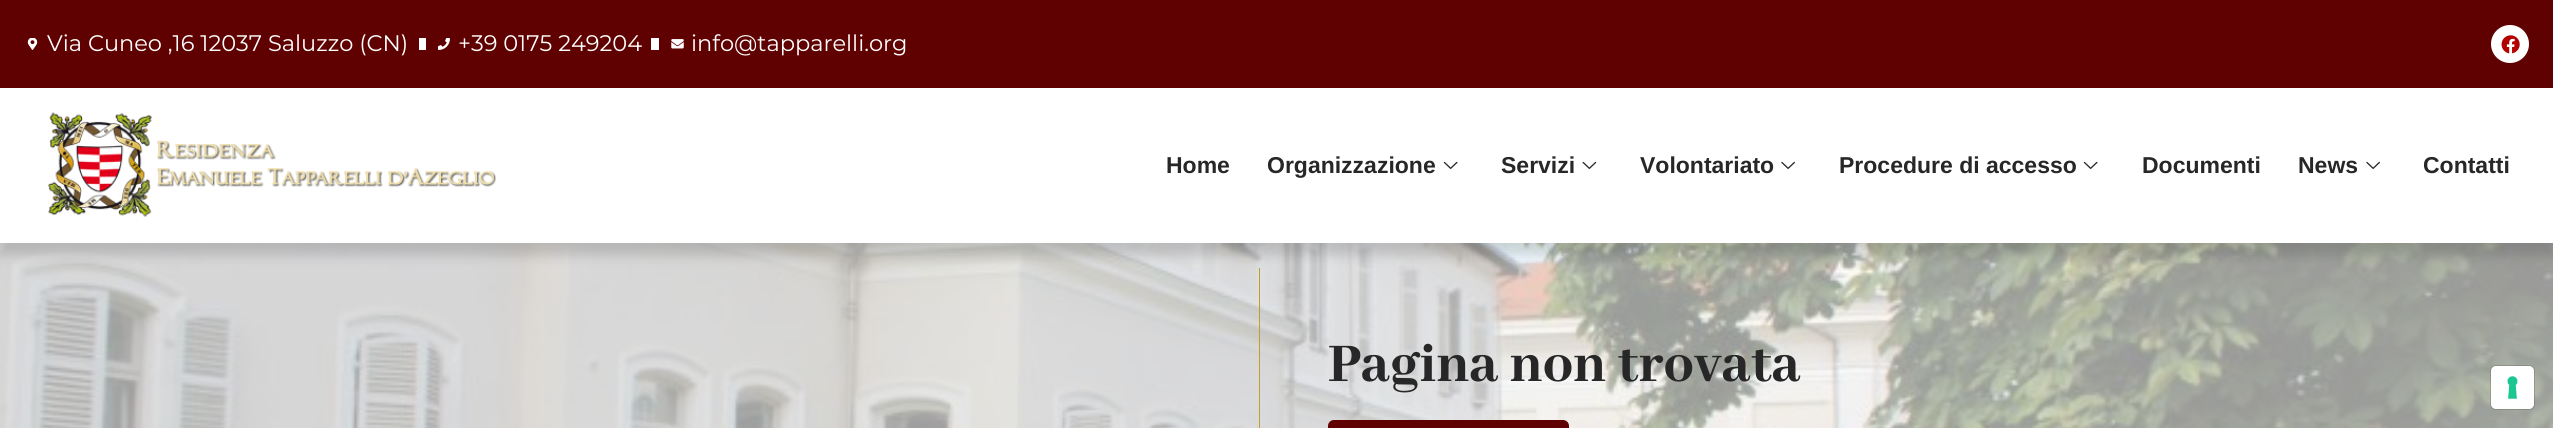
import math
import cairo

surface = cairo.ImageSurface(cairo.FORMAT_RGB24, 2553, 428)
ctx = cairo.Context(surface)
options = cairo.FontOptions()
options.set_hint_metrics(cairo.HINT_METRICS_OFF)
options.set_hint_style(cairo.HINT_STYLE_NONE)
ctx.set_font_options(options)
ctx.set_miter_limit(4)


def set_color(code):
    ctx.set_source_rgb(*(v / 255 for v in bytes.fromhex(code[-6:])))


def draw_text(x, y, s, family, size, color, bold=False, italic=False):
    ctx.select_font_face(family, cairo.FONT_SLANT_ITALIC if italic else cairo.FONT_SLANT_NORMAL, cairo.FONT_WEIGHT_BOLD if bold else cairo.FONT_WEIGHT_NORMAL)
    ctx.set_font_size(size)
    set_color(color)
    ctx.move_to(x, y)
    ctx.show_text(s)


def fill_rect(x, y, w, h, color):
    set_color(color)
    ctx.rectangle(x, y, w, h)
    ctx.fill()


def rounded_rect(x, y, w, h, r):
    ctx.new_sub_path()
    for i, (u, v) in enumerate([(x + w - r, y + h - r), (x + r, y + h - r), (x + r, y + r), (x + w - r, y + r)]):
        ctx.arc(u, v, r, i * math.pi / 2, (i + 1) * math.pi / 2)
    ctx.close_path()


def draw_shadow(x, y, w, h, r, blur, alpha):
    ctx.push_group_with_content(cairo.CONTENT_ALPHA)
    ctx.set_operator(cairo.OPERATOR_SOURCE)
    for i in range(15, -16, -2):
        e = blur * i / 6
        if min(w, h) + 2 * e > 0:
            ctx.set_source_rgba(0, 0, 0, alpha * math.erfc((i - 1) / 8.5) / 2)
            rounded_rect(x - e, y - e, w + 2 * e, h + 2 * e, max(0, min(r + e + blur * .6, min(w, h) / 2 + e)))
            ctx.fill()
    ctx.mask(ctx.pop_group())


def draw_image(path, x, y, w, h):
    ctx.save()
    ctx.set_source_surface(cairo.ImageSurface.create_from_png(path), x, y)
    ctx.rectangle(x, y, w, h)
    ctx.fill()
    ctx.restore()


set_color("#5f0101")
ctx.paint()
draw_image("assets/img1.png", 27, 38, 11, 12)
draw_text(47, 51, "Via Cuneo ,16 12037 Saluzzo (CN)", "Montserrat", 22.5, "#ffffff")
fill_rect(419, 38, 7, 12, "#ffffff")
draw_image("assets/img2.png", 438, 38, 12, 12)
draw_text(458, 51, "+39 0175 249204", "Montserrat", 22.5, "#ffffff")
fill_rect(651, 38, 8, 12, "#ffffff")
draw_image("assets/img3.png", 671, 39, 13, 10)
draw_text(691, 51, "info@tapparelli.org", "Montserrat", 22.5, "#ffffff")
ctx.new_path()
ctx.arc(2510, 44, 19, 0, 2 * math.pi)
ctx.fill()
draw_image("assets/img4.png", 2501, 35, 19, 19)
draw_image("assets/img9.png", 0, 243, 2553, 185)
fill_rect(1259, 268, 1, 160, "#c39e2e")
set_color("#000000")
draw_shadow(0, 100, 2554, 155, 0, 6, 0.15)
fill_rect(0, 88, 2553, 155, "#ffffff")
draw_image("assets/img5.png", 48, 112, 448, 105)
draw_text(1166, 173, "Home", "Liberation Sans", 23, "#272727", bold=True)
draw_text(1267, 173, "Organizzazione", "Liberation Sans", 23, "#272727", bold=True)
draw_image("assets/img6.png", 1443, 161, 15, 8)
draw_text(1501, 173, "Servizi", "Liberation Sans", 23, "#272727", bold=True)
draw_image("assets/img7.png", 1582, 161, 15, 8)
draw_text(1640, 173, "Volontariato", "Liberation Sans", 23, "#272727", bold=True)
draw_image("assets/img8.png", 1781, 161, 14, 8)
draw_text(1839, 173, "Procedure di accesso", "Liberation Sans", 23, "#272727", bold=True)
draw_image("assets/img6.png", 2083, 161, 15, 8)
draw_text(2142, 173, "Documenti", "Liberation Sans", 23, "#272727", bold=True)
draw_text(2298, 173, "News", "Liberation Sans", 23, "#272727", bold=True)
draw_image("assets/img8.png", 2366, 161, 14, 8)
draw_text(2423, 173, "Contatti", "Liberation Sans", 23, "#272727", bold=True)
draw_text(1328, 381, "Pagina non trovata", "Abhaya Libre ExtraBold ExtraBold", 60, "#272727")
set_color("#5f0101")
rounded_rect(1328, 420, 241, 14, 6)
ctx.fill()
rounded_rect(2490.5, 365.5, 44, 44, 5.5)
ctx.set_source_rgba(0, 0, 0, 0.15)
ctx.set_line_width(1)
ctx.stroke()
set_color("#ffffff")
rounded_rect(2491, 366, 43, 43, 5)
ctx.fill()
draw_image("assets/img10.png", 2507, 376, 11, 23)
surface.write_to_png("output.png")
